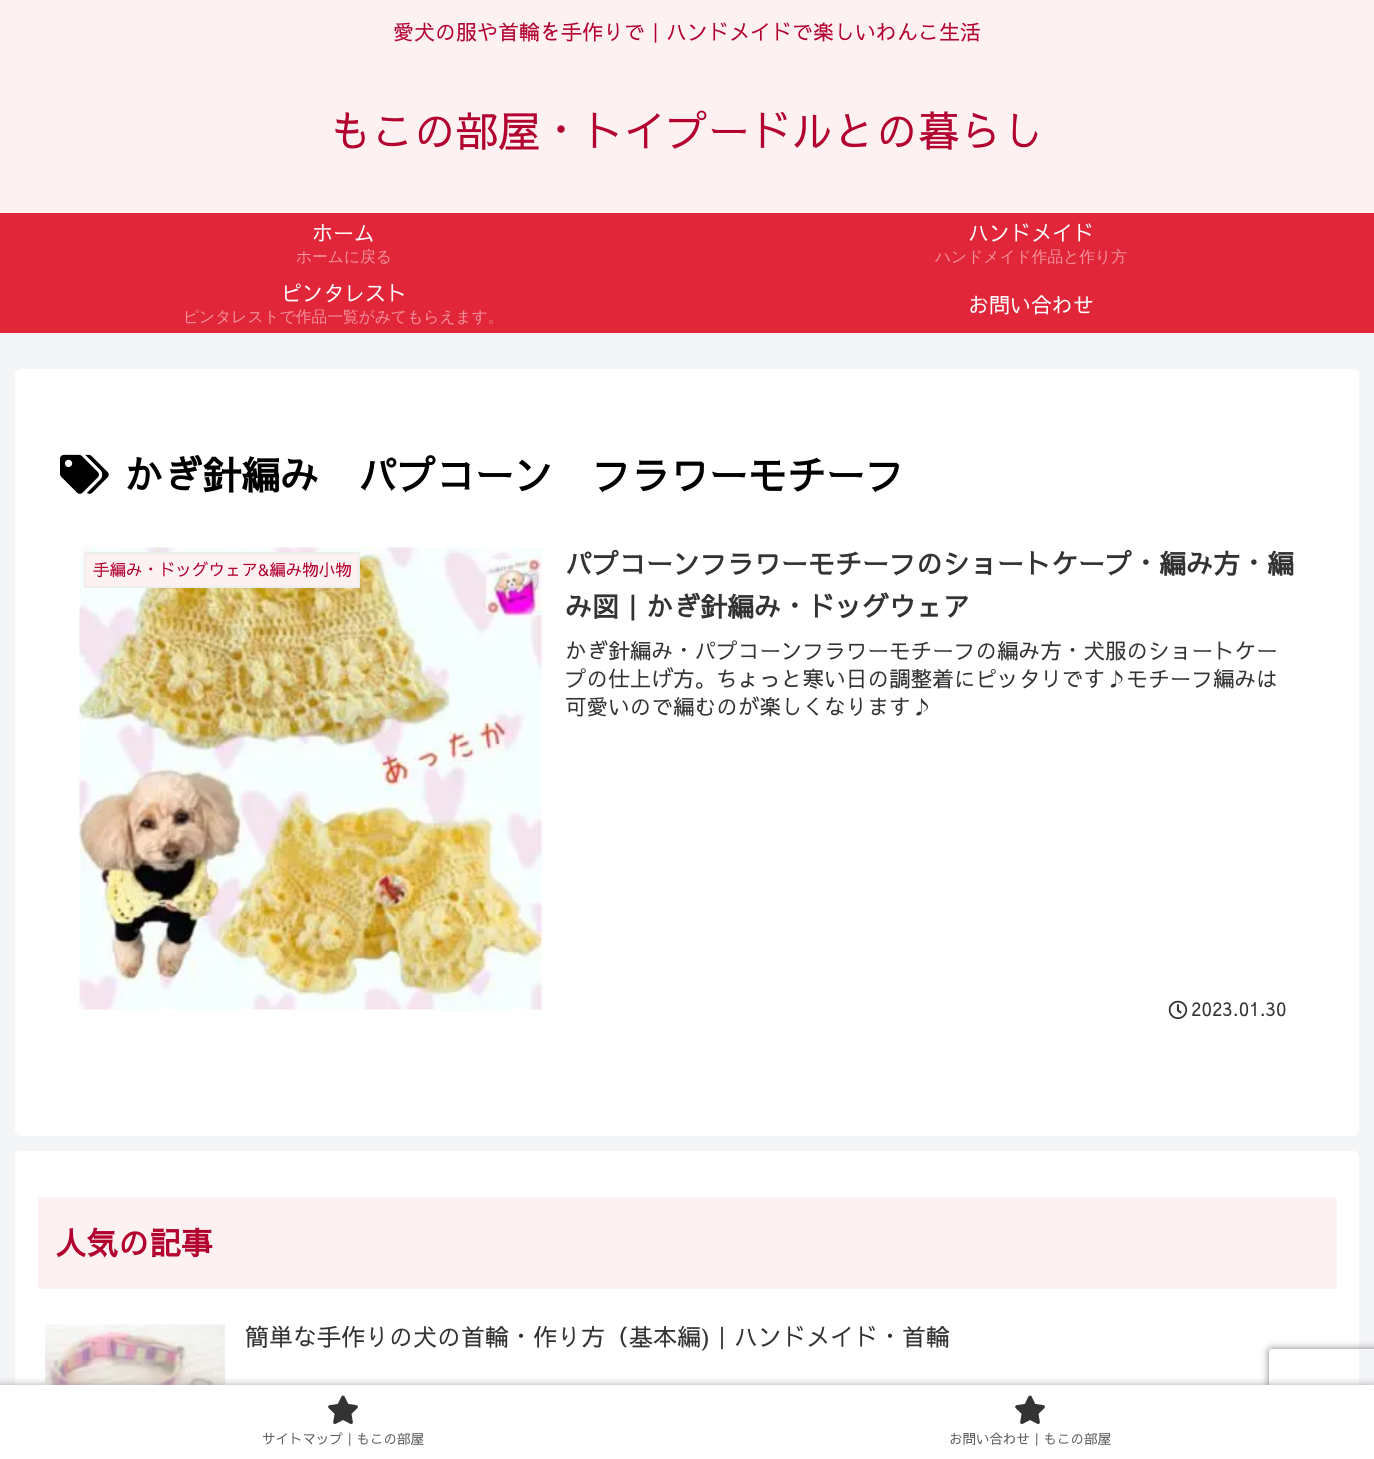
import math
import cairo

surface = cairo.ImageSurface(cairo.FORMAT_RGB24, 1374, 1459)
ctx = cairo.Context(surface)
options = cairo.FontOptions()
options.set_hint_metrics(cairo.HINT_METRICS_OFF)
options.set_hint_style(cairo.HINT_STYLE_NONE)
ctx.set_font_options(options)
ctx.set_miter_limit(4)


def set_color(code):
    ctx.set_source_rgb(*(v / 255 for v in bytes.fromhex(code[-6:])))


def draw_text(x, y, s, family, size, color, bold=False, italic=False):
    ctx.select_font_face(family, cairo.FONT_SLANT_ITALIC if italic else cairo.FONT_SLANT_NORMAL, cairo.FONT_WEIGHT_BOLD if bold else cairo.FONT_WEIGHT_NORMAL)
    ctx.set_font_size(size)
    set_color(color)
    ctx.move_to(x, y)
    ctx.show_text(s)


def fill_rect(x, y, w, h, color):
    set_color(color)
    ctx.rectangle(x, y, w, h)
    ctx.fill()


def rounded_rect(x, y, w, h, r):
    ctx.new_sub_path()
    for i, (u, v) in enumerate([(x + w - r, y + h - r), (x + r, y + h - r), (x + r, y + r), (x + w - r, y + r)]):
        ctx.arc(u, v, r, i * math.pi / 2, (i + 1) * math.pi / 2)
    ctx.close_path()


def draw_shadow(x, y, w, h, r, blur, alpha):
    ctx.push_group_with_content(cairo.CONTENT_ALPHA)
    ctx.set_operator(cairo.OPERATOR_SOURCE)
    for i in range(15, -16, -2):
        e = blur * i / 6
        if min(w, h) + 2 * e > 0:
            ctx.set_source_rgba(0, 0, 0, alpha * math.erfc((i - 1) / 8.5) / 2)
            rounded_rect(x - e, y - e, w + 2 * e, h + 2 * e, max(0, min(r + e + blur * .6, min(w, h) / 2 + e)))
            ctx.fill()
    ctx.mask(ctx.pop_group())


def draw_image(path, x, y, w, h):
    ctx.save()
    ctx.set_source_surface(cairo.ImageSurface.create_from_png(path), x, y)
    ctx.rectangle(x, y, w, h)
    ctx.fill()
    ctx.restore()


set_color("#f4f5f7")
ctx.paint()
fill_rect(0, 0, 1374, 213, "#fdf1f2")
draw_text(393, 40, "愛犬の服や首輪を手作りで｜ハンドメイドで楽しいわんこ生活", "Sawarabi Gothic", 21, "#b2002f")
draw_text(330, 147, "もこの部屋・トイプードルとの暮らし", "Sawarabi Gothic", 42, "#b2002f")
fill_rect(0, 213, 1374, 120, "#e2263a")
draw_text(312, 241, "ホーム", "Sawarabi Gothic", 21, "#ffffff")
draw_text(296, 262, "ホームに戻る", "WenQuanYi Zen Hei Medium", 15.75, "#f1939d")
draw_text(968, 241, "ハンドメイド", "Sawarabi Gothic", 21, "#ffffff")
draw_text(935, 262, "ハンドメイド作品と作り方", "WenQuanYi Zen Hei Medium", 15.75, "#f1939d")
draw_text(281, 301, "ピンタレスト", "Sawarabi Gothic", 21, "#ffffff")
draw_text(183, 322, "ピンタレストで作品一覧がみてもらえます。", "WenQuanYi Zen Hei Medium", 15.75, "#f1939d")
draw_text(968, 313, "お問い合わせ", "Sawarabi Gothic", 21, "#ffffff")
rounded_rect(15, 369, 1344, 767, 6)
ctx.fill()
draw_image("assets/img1.png", 60, 454, 49, 40)
draw_text(124, 490, "かぎ針編み　パプコーン　フラワーモチーフ", "Sawarabi Gothic", 39, "#000000", bold=True)
draw_image("assets/img2.png", 79, 547, 463, 463)
set_color("#fdf1f2")
ctx.rectangle(85, 553, 274, 34)
ctx.fill_preserve()
set_color("#eeeeee")
ctx.stroke()
draw_text(93, 576, "手編み・ドッグウェア&編み物小物", "Sawarabi Gothic", 16.5, "#b2002f")
draw_text(565, 574, "パプコーンフラワーモチーフのショートケープ・編み方・編", "Sawarabi Gothic", 27, "#333333", bold=True)
draw_text(565, 617, "み図｜かぎ針編み・ドッグウェア", "Sawarabi Gothic", 27, "#333333", bold=True)
draw_text(565, 659, "かぎ針編み・パプコーンフラワーモチーフの編み方・犬服のショートケー", "Sawarabi Gothic", 21.6, "#333333")
draw_text(565, 687, "プの仕上げ方。ちょっと寒い日の調整着にピッタリです♪モチーフ編みは", "Sawarabi Gothic", 21.6, "#333333")
draw_text(565, 715, "可愛いので編むのが楽しくなります♪", "Sawarabi Gothic", 21.6, "#333333")
draw_image("assets/img3.png", 1168, 1000, 20, 20)
draw_text(1191, 1016, "2023.01.30", "Sawarabi Gothic", 19, "#333333")
set_color("#ffffff")
rounded_rect(15, 1151, 1344, 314, 6)
ctx.fill()
set_color("#fdf1f2")
rounded_rect(38, 1197, 1299, 92, 3)
ctx.fill()
draw_text(55, 1255, "人気の記事", "Sawarabi Gothic", 31.5, "#b2002f", bold=True)
draw_image("assets/img4.png", 45, 1324, 180, 61)
draw_text(245, 1346, "簡単な手作りの犬の首輪・作り方（基本編)｜ハンドメイド・首輪", "Sawarabi Gothic", 24, "#333333")
set_color("#a9a9a9")
draw_shadow(0, 1385, 1374, 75, 0, 4, 1)
ctx.save()
ctx.set_fill_rule(cairo.FILL_RULE_EVEN_ODD)
ctx.new_path()
ctx.move_to(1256, 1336)
ctx.line_to(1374, 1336)
ctx.line_to(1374, 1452)
ctx.line_to(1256, 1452)
ctx.close_path()
ctx.move_to(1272, 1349)
ctx.line_to(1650, 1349)
ctx.curve_to(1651.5, 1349, 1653, 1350.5, 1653, 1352)
ctx.line_to(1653, 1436)
ctx.curve_to(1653, 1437.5, 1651.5, 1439, 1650, 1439)
ctx.line_to(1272, 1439)
ctx.curve_to(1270.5, 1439, 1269, 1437.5, 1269, 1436)
ctx.line_to(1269, 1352)
ctx.curve_to(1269, 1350.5, 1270.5, 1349, 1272, 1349)
ctx.close_path()
ctx.clip()
set_color("#808080")
draw_shadow(1269, 1349, 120, 90, 3, 4, 1)
ctx.restore()
fill_rect(0, 1385, 1374, 74, "#ffffff")
draw_image("assets/img5.png", 328, 1395, 30, 30)
draw_text(262, 1444, "サイトマップ｜もこの部屋", "Sawarabi Gothic", 13.5, "#5c5c5c")
draw_image("assets/img5.png", 1015, 1395, 30, 30)
draw_text(949, 1444, "お問い合わせ｜もこの部屋", "Sawarabi Gothic", 13.5, "#5c5c5c")
surface.write_to_png("output.png")
